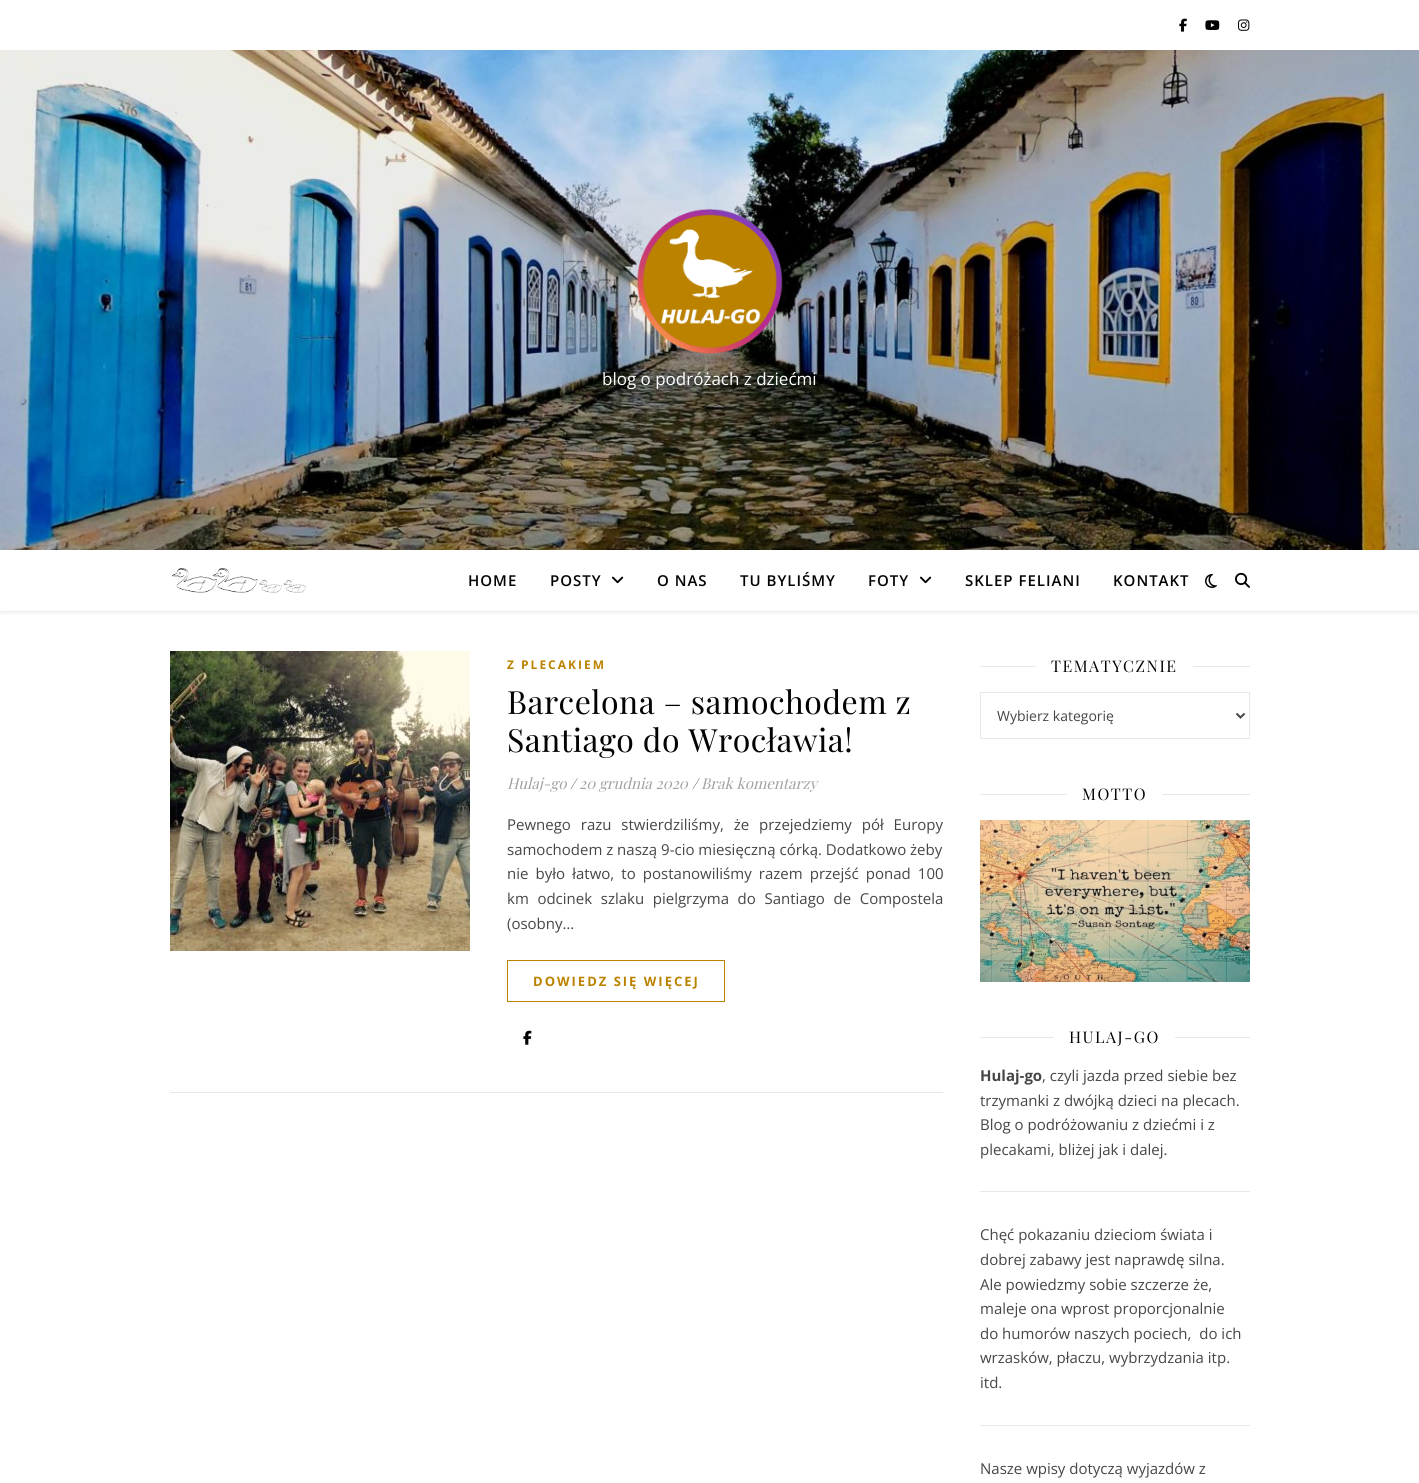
import math
import cairo

surface = cairo.ImageSurface(cairo.FORMAT_RGB24, 1419, 1483)
ctx = cairo.Context(surface)
options = cairo.FontOptions()
options.set_hint_metrics(cairo.HINT_METRICS_OFF)
options.set_hint_style(cairo.HINT_STYLE_NONE)
ctx.set_font_options(options)
ctx.set_miter_limit(4)


def set_color(code):
    ctx.set_source_rgb(*(v / 255 for v in bytes.fromhex(code[-6:])))


def draw_text(x, y, s, family, size, color, bold=False, italic=False):
    ctx.select_font_face(family, cairo.FONT_SLANT_ITALIC if italic else cairo.FONT_SLANT_NORMAL, cairo.FONT_WEIGHT_BOLD if bold else cairo.FONT_WEIGHT_NORMAL)
    ctx.set_font_size(size)
    set_color(color)
    ctx.move_to(x, y)
    ctx.show_text(s)


def draw_spaced(x, y, s, letter, word):
    ctx.move_to(x, y)
    for ch in s:
        ctx.show_text(ch)
        ctx.rel_move_to(letter + word * (ch == ' '), 0)


def fill_rect(x, y, w, h, color):
    set_color(color)
    ctx.rectangle(x, y, w, h)
    ctx.fill()


def rounded_rect(x, y, w, h, r):
    ctx.new_sub_path()
    for i, (u, v) in enumerate([(x + w - r, y + h - r), (x + r, y + h - r), (x + r, y + r), (x + w - r, y + r)]):
        ctx.arc(u, v, r, i * math.pi / 2, (i + 1) * math.pi / 2)
    ctx.close_path()


def draw_shadow(x, y, w, h, r, blur, alpha):
    ctx.push_group_with_content(cairo.CONTENT_ALPHA)
    ctx.set_operator(cairo.OPERATOR_SOURCE)
    for i in range(15, -16, -2):
        e = blur * i / 6
        if min(w, h) + 2 * e > 0:
            ctx.set_source_rgba(0, 0, 0, alpha * math.erfc((i - 1) / 8.5) / 2)
            rounded_rect(x - e, y - e, w + 2 * e, h + 2 * e, max(0, min(r + e + blur * .6, min(w, h) / 2 + e)))
            ctx.fill()
    ctx.mask(ctx.pop_group())


def draw_image(path, x, y, w, h):
    ctx.save()
    ctx.set_source_surface(cairo.ImageSurface.create_from_png(path), x, y)
    ctx.rectangle(x, y, w, h)
    ctx.fill()
    ctx.restore()


set_color("#ffffff")
ctx.paint()
draw_image("assets/img1.png", 1179, 18, 8, 14)
draw_image("assets/img2.png", 1205, 20, 15, 10)
draw_image("assets/img3.png", 1238, 19, 12, 12)
draw_image("assets/img4.png", 0, 50, 1419, 500)
draw_image("assets/img5.png", 636, 208, 147, 146)
draw_text(602, 385, "blog o podróżach z dziećmi", "Open Sans", 17, "#ffffff")
ctx.save()
ctx.set_fill_rule(cairo.FILL_RULE_EVEN_ODD)
ctx.new_path()
ctx.move_to(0, 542)
ctx.line_to(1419, 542)
ctx.line_to(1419, 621)
ctx.line_to(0, 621)
ctx.close_path()
ctx.move_to(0, 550)
ctx.line_to(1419, 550)
ctx.line_to(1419, 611)
ctx.line_to(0, 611)
ctx.close_path()
ctx.clip()
set_color("#000000")
draw_shadow(0, 551, 1419, 61, 0, 2.5, 0.1)
ctx.restore()
draw_image("assets/img6.png", 172, 568, 135, 25)
ctx.select_font_face("Open Sans SemiBold")
ctx.set_font_size(15)
set_color("#030303")
draw_spaced(468, 586, "HOME", 1, 0)
draw_spaced(550, 586, "POSTY", 1, 0)
draw_image("assets/img7.png", 612, 576, 12, 8)
draw_spaced(657, 586, "O NAS", 1, 0)
draw_spaced(740, 586, "TU BYLIŚMY", 1, 0)
draw_spaced(868, 586, "FOTY", 1, 0)
draw_image("assets/img7.png", 920, 576, 12, 8)
draw_spaced(965, 586, "SKLEP FELIANI", 1, 0)
draw_spaced(1113, 586, "KONTAKT", 1, 0)
draw_image("assets/img8.png", 1205, 574, 12, 14)
draw_image("assets/img9.png", 1235, 572, 15, 16)
fill_rect(170, 1092, 773, 1, "#e8e8e8")
draw_image("assets/img10.png", 170, 651, 300, 300)
ctx.select_font_face("Open Sans", cairo.FONT_SLANT_NORMAL, cairo.FONT_WEIGHT_BOLD)
ctx.set_font_size(12)
set_color("#bb8200")
draw_spaced(507, 669, "Z PLECAKIEM", 2, 0)
ctx.select_font_face("Playfair Display")
ctx.set_font_size(32)
set_color("#030303")
draw_spaced(507, 714, "Barcelona – samochodem z", 0.5, 0)
draw_spaced(507, 752, "Santiago do Wrocławia!", 0.5, 0)
draw_text(507, 789, "Hulaj-go", "Playfair Display", 15, "#a1a1a1", italic=True)
draw_text(570, 789, "/", "Playfair Display", 15, "#464646", italic=True)
draw_text(579, 789, "20 grudnia 2020", "Playfair Display", 15, "#a1a1a1", italic=True)
draw_text(692, 789, "/", "Playfair Display", 15, "#464646", italic=True)
draw_text(701, 789, "Brak komentarzy", "Playfair Display", 15, "#a1a1a1", italic=True)
ctx.select_font_face("Open Sans")
set_color("#464646")
draw_spaced(507, 830, "Pewnego razu stwierdziliśmy, że przejedziemy pół Europy", 0, 6)
draw_text(507, 855, "samochodem z naszą 9-cio miesięczną córką. Dodatkowo żeby", "Open Sans", 15, "#464646")
draw_spaced(507, 879, "nie było łatwo, to postanowiliśmy razem przejść ponad 100", 0, 3.25)
draw_spaced(507, 904, "km odcinek szlaku pielgrzyma do Santiago de Compostela", 0, 4.75)
draw_text(507, 929, "(osobny…", "Open Sans", 15, "#464646")
ctx.rectangle(507.5, 960.5, 217, 41)
set_color("#bb8200")
ctx.set_line_width(1)
ctx.stroke()
ctx.select_font_face("Open Sans", cairo.FONT_SLANT_NORMAL, cairo.FONT_WEIGHT_BOLD)
ctx.set_font_size(13)
draw_spaced(533, 986, "DOWIEDZ SIĘ WIĘCEJ", 2, 0)
draw_image("assets/img11.png", 523, 1030, 9, 15)
fill_rect(980, 666, 56, 1, "#e8e8e8")
ctx.select_font_face("Playfair Display")
ctx.set_font_size(16)
set_color("#030303")
draw_spaced(1051, 672, "TEMATYCZNIE", 1.5, 0)
fill_rect(1193, 666, 57, 1, "#e8e8e8")
ctx.rectangle(980.5, 692.5, 269, 46)
ctx.stroke()
ctx.new_path()
ctx.move_to(1236.5, 713.5)
ctx.line_to(1240.5, 717.5)
ctx.line_to(1244.5, 713.5)
set_color("#464646")
ctx.set_line_width(2)
ctx.stroke()
draw_text(997, 721, "Wybierz kategorię", "Open Sans", 14, "#464646")
fill_rect(980, 794, 87, 1, "#e8e8e8")
ctx.select_font_face("Playfair Display")
ctx.set_font_size(16)
set_color("#030303")
draw_spaced(1082, 800, "MOTTO", 1.5, 0)
fill_rect(1162, 794, 88, 1, "#e8e8e8")
draw_image("assets/img12.png", 980, 820, 270, 162)
fill_rect(980, 1037, 74, 1, "#e8e8e8")
set_color("#030303")
draw_spaced(1069, 1043, "HULAJ-GO", 1.5, 0)
fill_rect(1175, 1037, 75, 1, "#e8e8e8")
draw_text(980, 1081, "Hulaj-go", "Open Sans", 15, "#464646", bold=True)
draw_text(1042, 1081, ", czyli jazda przed siebie bez", "Open Sans", 15, "#464646")
draw_text(980, 1106, "trzymanki z dwójką dzieci na plecach.", "Open Sans", 15, "#464646")
draw_text(980, 1130, "Blog o podróżowaniu z dziećmi i z", "Open Sans", 15, "#464646")
draw_text(980, 1155, "plecakami, bliżej jak i dalej.", "Open Sans", 15, "#464646")
fill_rect(980, 1191, 270, 1, "#e8e8e8")
draw_text(980, 1240, "Chęć pokazaniu dzieciom świata i", "Open Sans", 15, "#464646")
draw_text(980, 1265, "dobrej zabawy jest naprawdę silna.", "Open Sans", 15, "#464646")
draw_text(980, 1290, "Ale powiedzmy sobie szczerze że,", "Open Sans", 15, "#464646")
draw_text(980, 1314, "maleje ona wprost proporcjonalnie", "Open Sans", 15, "#464646")
draw_text(980, 1339, "do humorów naszych pociech,  do ich", "Open Sans", 15, "#464646")
draw_text(980, 1363, "wrzasków, płaczu, wybrzydzania itp.", "Open Sans", 15, "#464646")
draw_text(980, 1388, "itd.", "Open Sans", 15, "#464646")
fill_rect(980, 1425, 270, 1, "#e8e8e8")
draw_text(980, 1474, "Nasze wpisy dotyczą wyjazdów z", "Open Sans", 15, "#464646")
surface.write_to_png("output.png")
